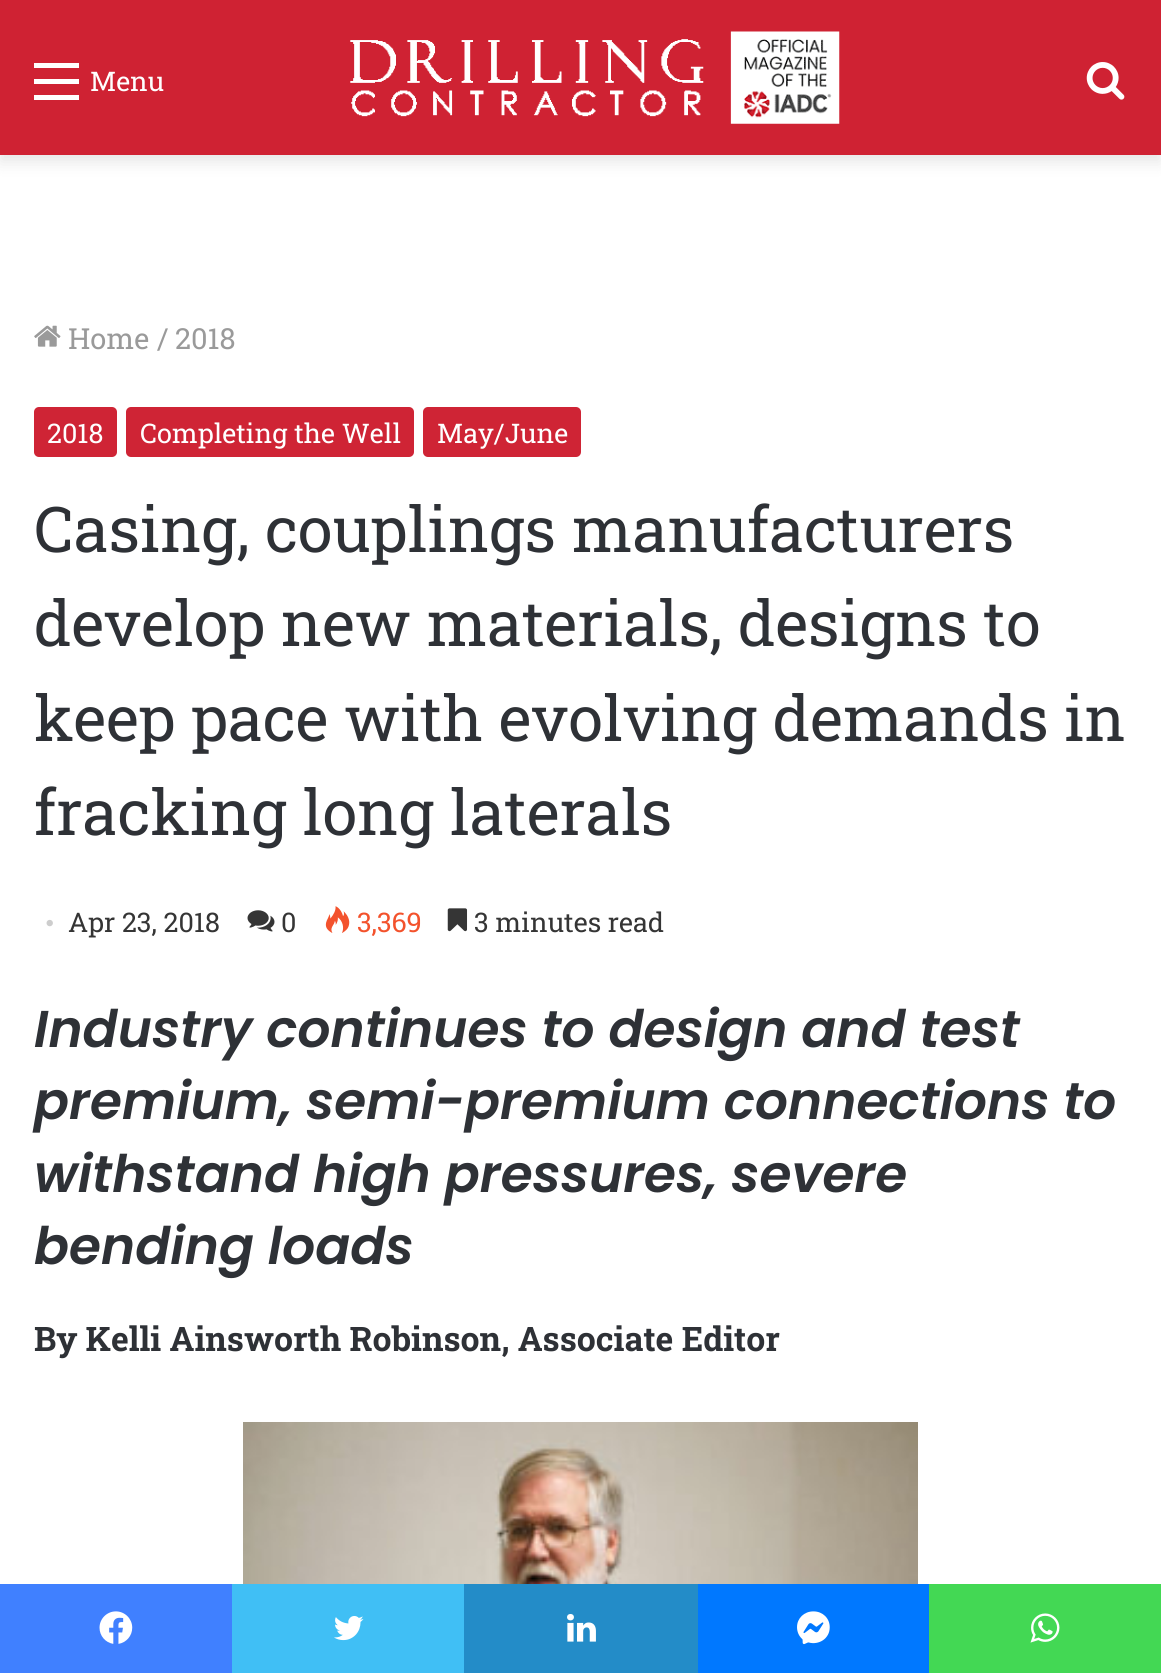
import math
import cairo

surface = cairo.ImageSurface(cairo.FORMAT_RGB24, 1161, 1673)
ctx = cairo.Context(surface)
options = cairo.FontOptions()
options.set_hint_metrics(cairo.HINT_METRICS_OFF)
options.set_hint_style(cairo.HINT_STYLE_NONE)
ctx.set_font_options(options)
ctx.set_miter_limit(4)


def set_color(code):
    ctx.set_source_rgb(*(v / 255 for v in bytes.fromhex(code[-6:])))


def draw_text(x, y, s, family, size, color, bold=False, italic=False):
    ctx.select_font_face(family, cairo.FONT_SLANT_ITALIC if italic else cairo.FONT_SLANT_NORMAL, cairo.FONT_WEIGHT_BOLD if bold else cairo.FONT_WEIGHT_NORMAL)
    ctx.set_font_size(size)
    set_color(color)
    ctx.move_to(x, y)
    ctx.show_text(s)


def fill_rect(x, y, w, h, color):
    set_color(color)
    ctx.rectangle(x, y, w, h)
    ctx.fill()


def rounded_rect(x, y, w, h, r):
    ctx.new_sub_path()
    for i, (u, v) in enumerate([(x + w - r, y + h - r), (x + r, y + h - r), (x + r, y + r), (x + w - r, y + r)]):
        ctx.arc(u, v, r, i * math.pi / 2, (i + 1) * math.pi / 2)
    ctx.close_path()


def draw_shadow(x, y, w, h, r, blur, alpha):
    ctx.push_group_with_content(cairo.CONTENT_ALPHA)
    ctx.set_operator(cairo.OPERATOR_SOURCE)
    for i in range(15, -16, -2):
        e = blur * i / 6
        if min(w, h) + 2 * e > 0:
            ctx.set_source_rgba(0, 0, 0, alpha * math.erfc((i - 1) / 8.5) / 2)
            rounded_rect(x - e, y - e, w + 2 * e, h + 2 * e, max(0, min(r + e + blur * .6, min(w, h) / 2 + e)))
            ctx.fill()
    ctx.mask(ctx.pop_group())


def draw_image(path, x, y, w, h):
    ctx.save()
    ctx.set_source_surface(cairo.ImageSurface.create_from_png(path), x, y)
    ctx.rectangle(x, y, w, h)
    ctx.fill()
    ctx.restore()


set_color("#ffffff")
ctx.paint()
set_color("#000000")
draw_shadow(0, 7, 1161, 155, 0, 8, 0.1)
fill_rect(0, 0, 1161, 155, "#cf2233")
fill_rect(34, 79, 45, 5, "#ffffff")
fill_rect(34, 63, 45, 5, "#ffffff")
fill_rect(34, 95, 45, 5, "#ffffff")
draw_text(90, 91, "Menu", "Roboto Slab", 27, "#ffffff")
draw_image("assets/img1.png", 350, 31, 490, 93)
draw_image("assets/img2.png", 1086, 62, 39, 38)
draw_image("assets/img3.png", 34, 325, 27, 22)
draw_text(68, 349, "Home", "Roboto Slab", 29, "#9a9a9a")
draw_text(157, 349, "/", "Roboto Slab", 29, "#9a9a9a")
draw_text(175, 349, "2018", "Roboto Slab", 29, "#9a9a9a")
set_color("#cf2435")
rounded_rect(34, 407, 83, 50, 5)
ctx.fill()
draw_text(47, 443, "2018", "Roboto Slab", 27, "#ffffff")
set_color("#cf2435")
rounded_rect(126, 407, 288, 50, 5)
ctx.fill()
draw_text(140, 443, "Completing the Well", "Roboto Slab", 27, "#ffffff")
set_color("#cf2435")
rounded_rect(423, 407, 158, 50, 5)
ctx.fill()
draw_text(437, 443, "May/June", "Roboto Slab", 27, "#ffffff")
draw_text(34, 552, "Casing, couplings manufacturers", "Roboto Slab", 63, "#2e3136")
draw_text(34, 646, "develop new materials, designs to", "Roboto Slab", 63, "#2e3136")
draw_text(34, 741, "keep pace with evolving demands in", "Roboto Slab", 63, "#2e3136")
draw_text(34, 835, "fracking long laterals", "Roboto Slab", 63, "#2e3136")
draw_text(45, 932, "•", "Liberation Serif", 27, "#cdcdcd")
draw_text(68, 932, "Apr 23, 2018", "Roboto Slab", 27, "#353535")
draw_image("assets/img4.png", 247, 910, 28, 22)
draw_text(281, 932, "0", "Roboto Slab", 27, "#353535")
draw_image("assets/img5.png", 325, 906, 25, 27)
draw_text(357, 932, "3,369", "Roboto Slab", 27, "#f3522c")
draw_image("assets/img6.png", 447, 908, 21, 24)
draw_text(474, 932, "3 minutes read", "Roboto Slab", 27, "#353535")
draw_text(34, 1047, "Industry continues to design and test", "Poppins SemiBold", 51.75, "#2e3136", italic=True)
draw_text(34, 1119, "premium, semi-premium connections to", "Poppins SemiBold", 51.75, "#2e3136", italic=True)
draw_text(34, 1192, "withstand high pressures, severe", "Poppins SemiBold", 51.75, "#2e3136", italic=True)
draw_text(34, 1264, "bending loads", "Poppins SemiBold", 51.75, "#2e3136", italic=True)
draw_text(34, 1351, "By Kelli Ainsworth Robinson, Associate Editor", "Roboto Slab", 33.75, "#2e3136", bold=True)
draw_image("assets/img7.png", 243, 1422, 675, 162)
fill_rect(0, 1584, 232, 89, "#4080ff")
draw_image("assets/img8.png", 99, 1611, 34, 33)
fill_rect(232, 1584, 232, 89, "#40bff5")
draw_image("assets/img9.png", 334, 1616, 30, 25)
fill_rect(464, 1584, 234, 89, "#238cc8")
draw_image("assets/img10.png", 567, 1614, 29, 28)
fill_rect(698, 1584, 231, 89, "#0078ff")
draw_image("assets/img11.png", 797, 1611, 33, 34)
fill_rect(929, 1584, 232, 89, "#43d854")
draw_image("assets/img12.png", 1030, 1613, 30, 30)
surface.write_to_png("output.png")
